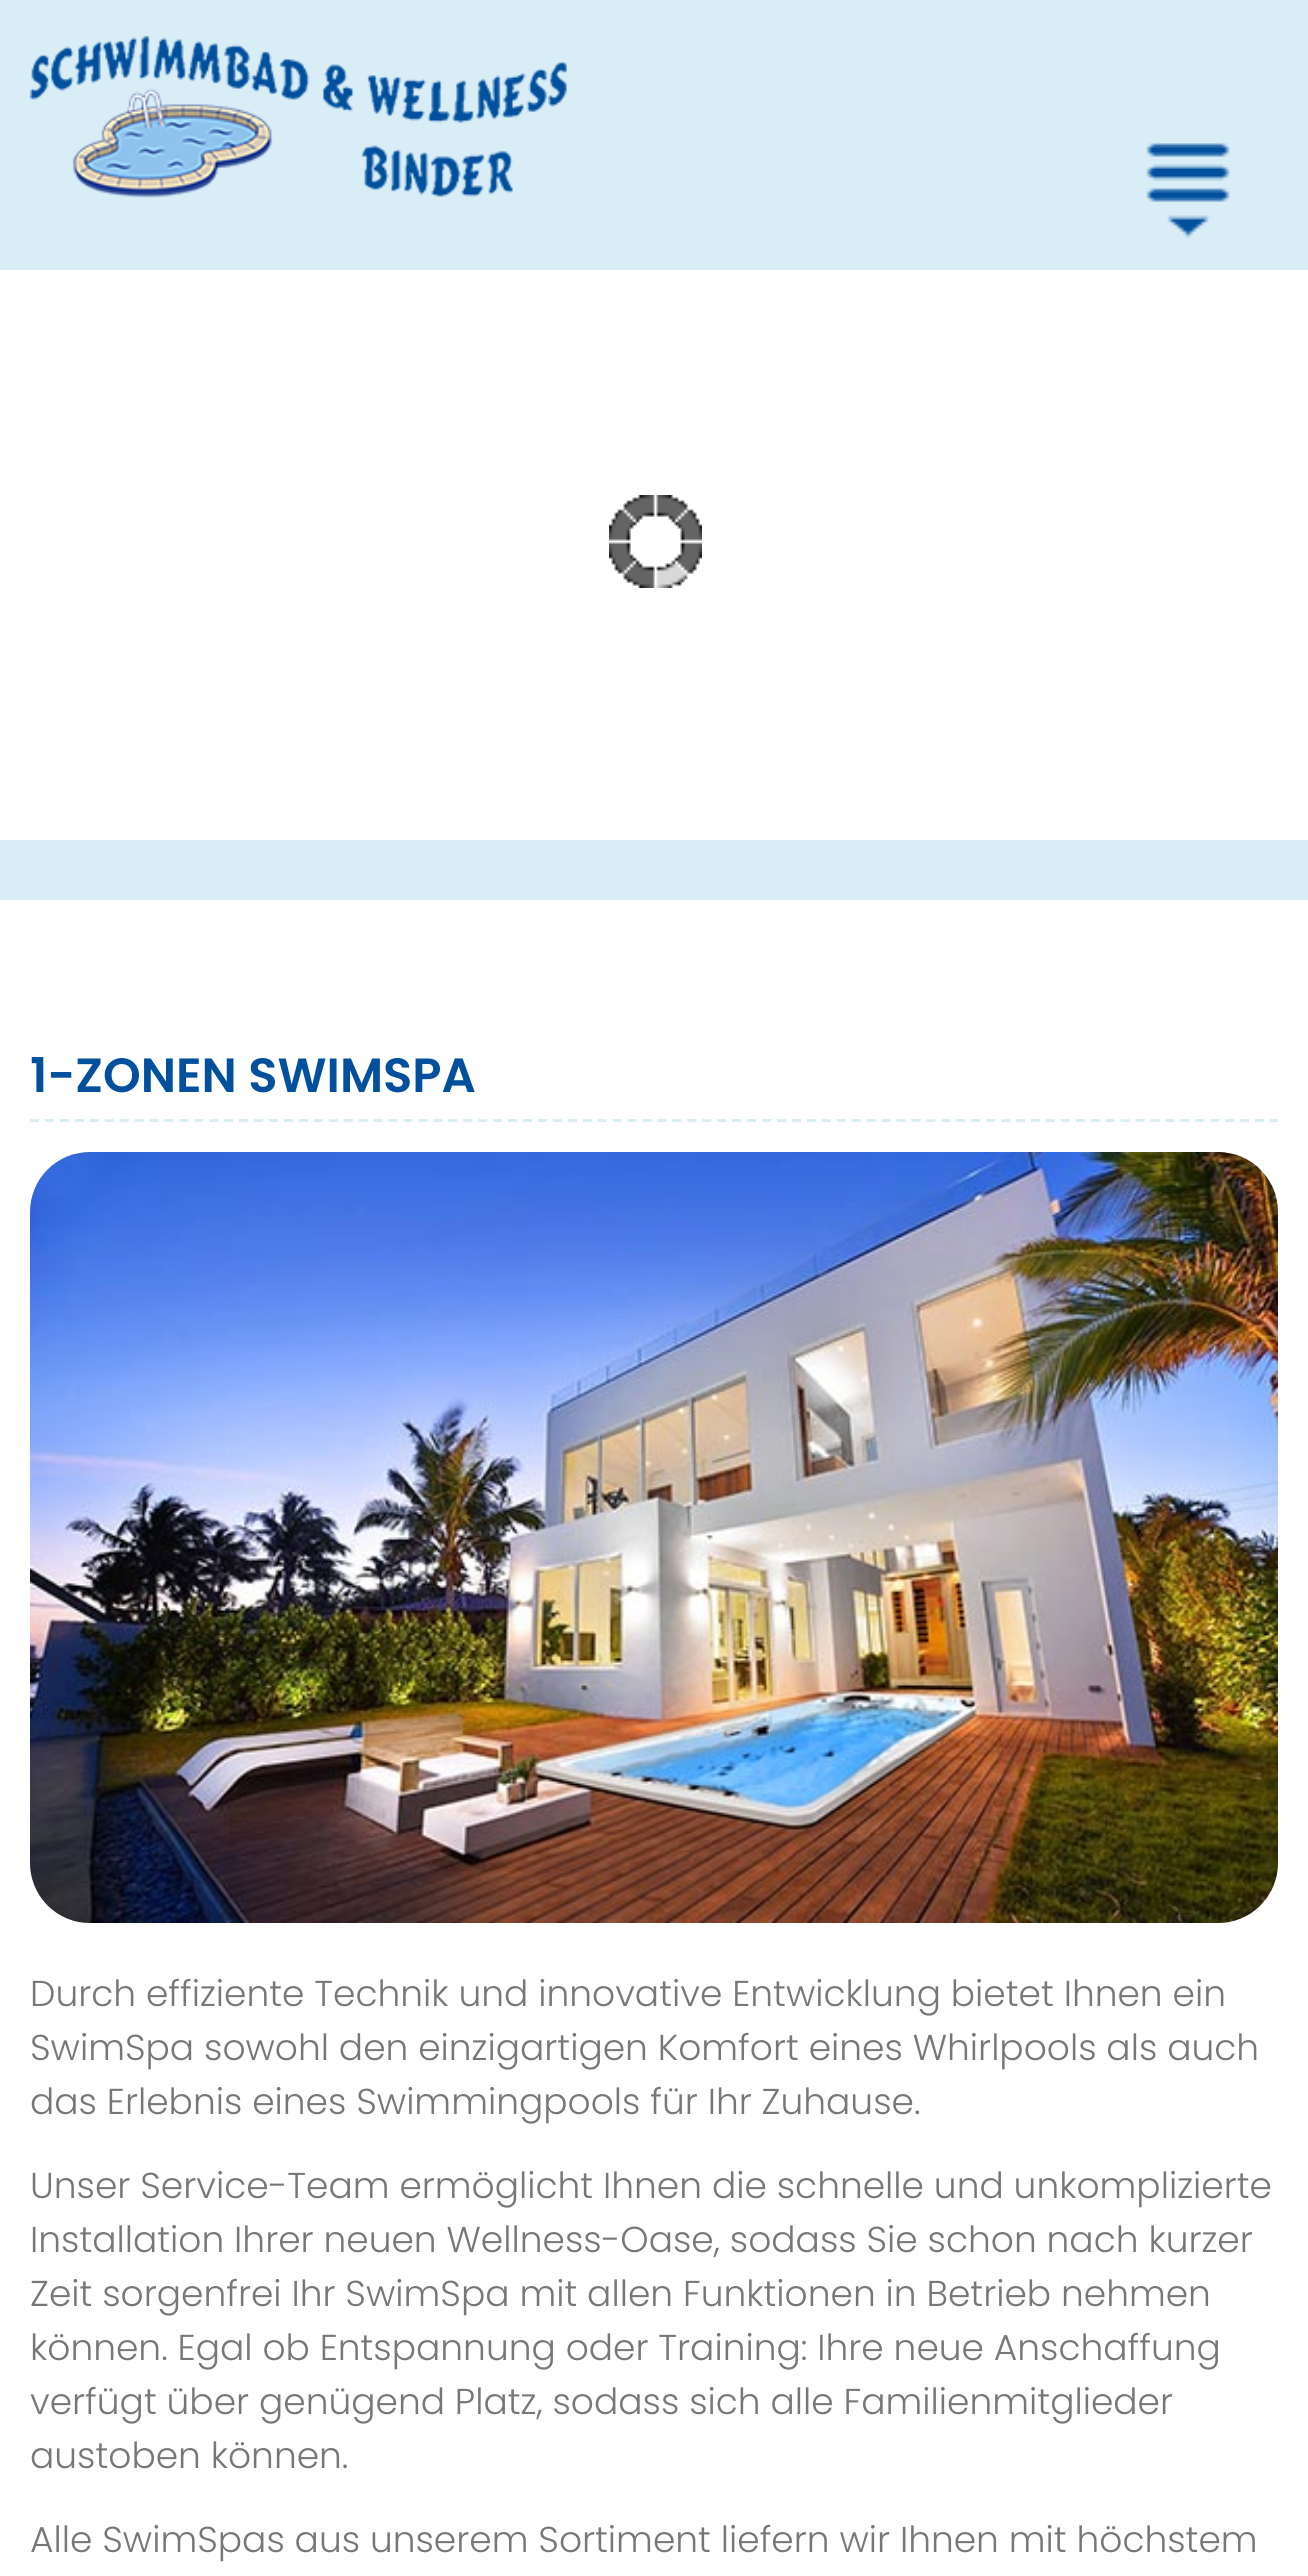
import math
import cairo

surface = cairo.ImageSurface(cairo.FORMAT_RGB24, 1308, 2576)
ctx = cairo.Context(surface)
options = cairo.FontOptions()
options.set_hint_metrics(cairo.HINT_METRICS_OFF)
options.set_hint_style(cairo.HINT_STYLE_NONE)
ctx.set_font_options(options)
ctx.set_miter_limit(4)


def set_color(code):
    ctx.set_source_rgb(*(v / 255 for v in bytes.fromhex(code[-6:])))


def draw_text(x, y, s, family, size, color, bold=False, italic=False):
    ctx.select_font_face(family, cairo.FONT_SLANT_ITALIC if italic else cairo.FONT_SLANT_NORMAL, cairo.FONT_WEIGHT_BOLD if bold else cairo.FONT_WEIGHT_NORMAL)
    ctx.set_font_size(size)
    set_color(color)
    ctx.move_to(x, y)
    ctx.show_text(s)


def fill_rect(x, y, w, h, color):
    set_color(color)
    ctx.rectangle(x, y, w, h)
    ctx.fill()


def draw_image(path, x, y, w, h):
    ctx.save()
    ctx.set_source_surface(cairo.ImageSurface.create_from_png(path), x, y)
    ctx.rectangle(x, y, w, h)
    ctx.fill()
    ctx.restore()


set_color("#ffffff")
ctx.paint()
fill_rect(0, 0, 1308, 270, "#d9edf7")
draw_image("assets/img1.png", 30, 36, 537, 162)
draw_image("assets/img2.png", 1146, 143, 84, 95)
draw_image("assets/img3.png", 609, 495, 93, 93)
fill_rect(0, 840, 1308, 60, "#d9edf7")
ctx.new_path()
ctx.move_to(30, 1120.5)
ctx.line_to(1278, 1120.5)
ctx.set_line_width(3)
ctx.set_dash([9, 5.94])
ctx.stroke()
draw_text(30, 1092, "1-ZONEN SWIMSPA", "Poppins SemiBold", 48, "#00509d")
draw_image("assets/img4.png", 30, 1152, 1248, 771)
draw_text(30, 2006, "Durch effiziente Technik und innovative Entwicklung bietet Ihnen ein", "Poppins Light", 36, "#777777")
draw_text(30, 2060, "SwimSpa sowohl den einzigartigen Komfort eines Whirlpools als auch", "Poppins Light", 36, "#777777")
draw_text(30, 2114, "das Erlebnis eines Swimmingpools für Ihr Zuhause.", "Poppins Light", 36, "#777777")
draw_text(30, 2198, "Unser Service-Team ermöglicht Ihnen die schnelle und unkomplizierte", "Poppins Light", 36, "#777777")
draw_text(30, 2252, "Installation Ihrer neuen Wellness-Oase, sodass Sie schon nach kurzer", "Poppins Light", 36, "#777777")
draw_text(30, 2306, "Zeit sorgenfrei Ihr SwimSpa mit allen Funktionen in Betrieb nehmen", "Poppins Light", 36, "#777777")
draw_text(30, 2360, "können. Egal ob Entspannung oder Training: Ihre neue Anschaffung", "Poppins Light", 36, "#777777")
draw_text(30, 2414, "verfügt über genügend Platz, sodass sich alle Familienmitglieder", "Poppins Light", 36, "#777777")
draw_text(30, 2468, "austoben können.", "Poppins Light", 36, "#777777")
draw_text(30, 2552, "Alle SwimSpas aus unserem Sortiment liefern wir Ihnen mit höchstem", "Poppins Light", 36, "#777777")
surface.write_to_png("output.png")
